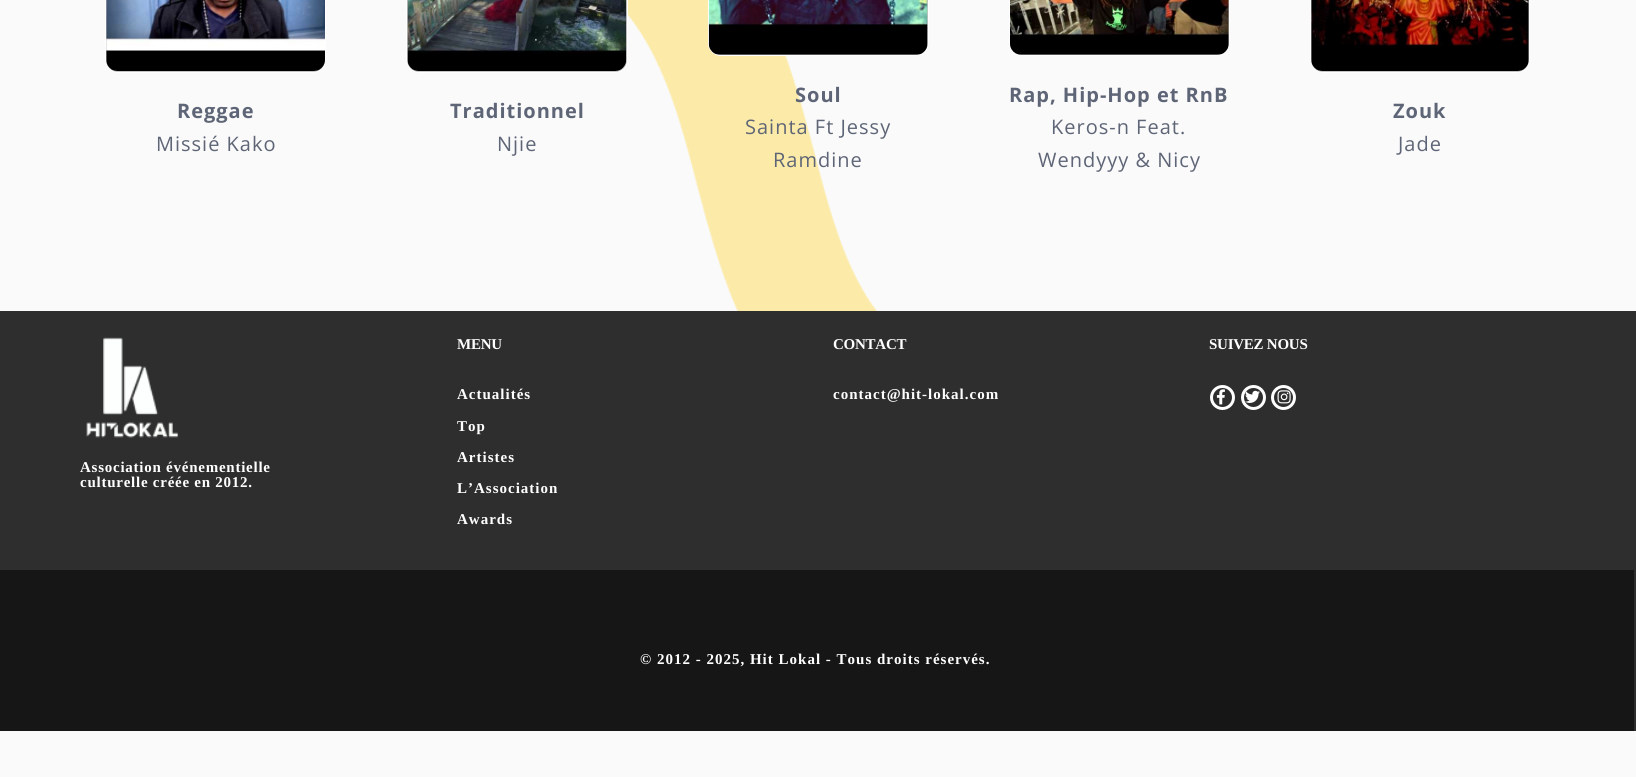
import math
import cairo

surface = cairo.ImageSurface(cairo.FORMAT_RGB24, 1636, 777)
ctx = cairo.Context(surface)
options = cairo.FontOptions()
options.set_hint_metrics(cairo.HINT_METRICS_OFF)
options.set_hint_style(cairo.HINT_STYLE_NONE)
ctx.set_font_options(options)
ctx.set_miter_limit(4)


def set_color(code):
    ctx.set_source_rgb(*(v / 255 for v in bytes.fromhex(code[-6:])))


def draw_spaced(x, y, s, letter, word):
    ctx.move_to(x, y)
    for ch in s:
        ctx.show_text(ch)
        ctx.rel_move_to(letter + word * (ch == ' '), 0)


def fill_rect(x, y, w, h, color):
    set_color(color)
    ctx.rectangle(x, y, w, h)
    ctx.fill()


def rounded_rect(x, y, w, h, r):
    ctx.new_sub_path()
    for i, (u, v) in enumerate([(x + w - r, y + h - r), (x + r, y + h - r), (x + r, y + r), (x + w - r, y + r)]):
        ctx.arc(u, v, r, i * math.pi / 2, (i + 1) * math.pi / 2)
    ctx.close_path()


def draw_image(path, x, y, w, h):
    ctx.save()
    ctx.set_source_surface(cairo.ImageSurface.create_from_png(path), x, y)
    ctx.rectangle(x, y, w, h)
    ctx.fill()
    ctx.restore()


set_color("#fafafa")
ctx.paint()
draw_image("assets/img1.png", 628, 0, 249, 311)
set_color("#c4c4c4")
rounded_rect(105.5, -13.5, 220, 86, 12.5)
ctx.fill_preserve()
set_color("#ffffff")
ctx.set_line_width(1)
ctx.stroke()
draw_image("assets/img2.png", 106, 0, 219, 71)
ctx.select_font_face("Open Sans", cairo.FONT_SLANT_NORMAL, cairo.FONT_WEIGHT_BOLD)
ctx.set_font_size(20)
set_color("#5e6576")
draw_spaced(177, 118, "Reggae", 1, 0)
ctx.select_font_face("Open Sans")
draw_spaced(156, 151, "Missié Kako", 1, 0)
set_color("#c4c4c4")
rounded_rect(406.5, -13.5, 221, 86, 12.5)
ctx.fill_preserve()
set_color("#ffffff")
ctx.stroke()
draw_image("assets/img3.png", 407, 0, 220, 71)
ctx.select_font_face("Open Sans", cairo.FONT_SLANT_NORMAL, cairo.FONT_WEIGHT_BOLD)
set_color("#5e6576")
draw_spaced(450, 118, "Traditionnel", 1, 0)
ctx.select_font_face("Open Sans")
draw_spaced(497, 151, "Njie", 1, 0)
set_color("#c4c4c4")
rounded_rect(708.5, -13.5, 220, 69, 12.5)
ctx.fill_preserve()
set_color("#ffffff")
ctx.stroke()
draw_image("assets/img4.png", 708, 0, 220, 55)
ctx.select_font_face("Open Sans", cairo.FONT_SLANT_NORMAL, cairo.FONT_WEIGHT_BOLD)
set_color("#5e6576")
draw_spaced(795, 102, "Soul", 1, 0)
ctx.select_font_face("Open Sans")
draw_spaced(745, 134, "Sainta Ft Jessy", 1, 0)
draw_spaced(773, 167, "Ramdine", 1, 0)
set_color("#c4c4c4")
rounded_rect(1009.5, -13.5, 220, 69, 12.5)
ctx.fill_preserve()
set_color("#ffffff")
ctx.stroke()
draw_image("assets/img5.png", 1010, 0, 219, 55)
ctx.select_font_face("Open Sans", cairo.FONT_SLANT_NORMAL, cairo.FONT_WEIGHT_BOLD)
set_color("#5e6576")
draw_spaced(1009, 102, "Rap, Hip-Hop et RnB", 1, 0)
ctx.select_font_face("Open Sans")
draw_spaced(1051, 134, "Keros-n Feat.", 1, 0)
draw_spaced(1038, 167, "Wendyyy & Nicy", 1, 0)
set_color("#c4c4c4")
rounded_rect(1310.5, -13.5, 219, 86, 12.5)
ctx.fill_preserve()
set_color("#ffffff")
ctx.stroke()
draw_image("assets/img6.png", 1311, 0, 218, 71)
ctx.select_font_face("Open Sans", cairo.FONT_SLANT_NORMAL, cairo.FONT_WEIGHT_BOLD)
set_color("#5e6576")
draw_spaced(1393, 118, "Zouk", 1, 0)
ctx.select_font_face("Open Sans")
draw_spaced(1398, 151, "Jade", 1, 0)
fill_rect(0, 311, 1636, 420, "#2e2e2e")
ctx.select_font_face("Liberation Serif", cairo.FONT_SLANT_NORMAL, cairo.FONT_WEIGHT_BOLD)
ctx.set_font_size(15)
set_color("#ffffff")
draw_spaced(457, 349, "MENU", -0.25, 0)
draw_spaced(457, 399, "Actualités", 1, 0)
draw_spaced(457, 431, "Top", 1, 0)
draw_spaced(457, 462, "Artistes", 1, 0)
draw_spaced(457, 493, "L’Association", 1, 0)
draw_spaced(457, 524, "Awards", 1, 0)
draw_spaced(833, 349, "CONTACT", -0.25, 0)
draw_spaced(833, 399, "contact@hit-lokal.com", 1, 0)
draw_spaced(1209, 349, "SUIVEZ NOUS", -0.25, 0)
ctx.new_path()
ctx.arc(1222.5, 397.5, 11, 0, 2 * math.pi)
ctx.set_line_width(3)
ctx.stroke()
draw_image("assets/img7.png", 1216, 389, 9, 16)
ctx.arc(1253.5, 397.5, 11, 0, 2 * math.pi)
ctx.stroke()
draw_image("assets/img8.png", 1245, 390, 15, 13)
ctx.arc(1283.5, 397.5, 11, 0, 2 * math.pi)
ctx.stroke()
draw_image("assets/img9.png", 1277, 390, 14, 14)
draw_image("assets/img10.png", 86, 337, 93, 101)
draw_spaced(80, 472, "Association événementielle", 0.75, 0)
draw_spaced(80, 487, "culturelle créée en 2012.", 0.75, 0)
fill_rect(0, 570, 1634, 161, "#161616")
set_color("#ffffff")
draw_spaced(640, 664, "© 2012 - 2025, Hit Lokal - Tous droits réservés.", 1, 0)
surface.write_to_png("output.png")
